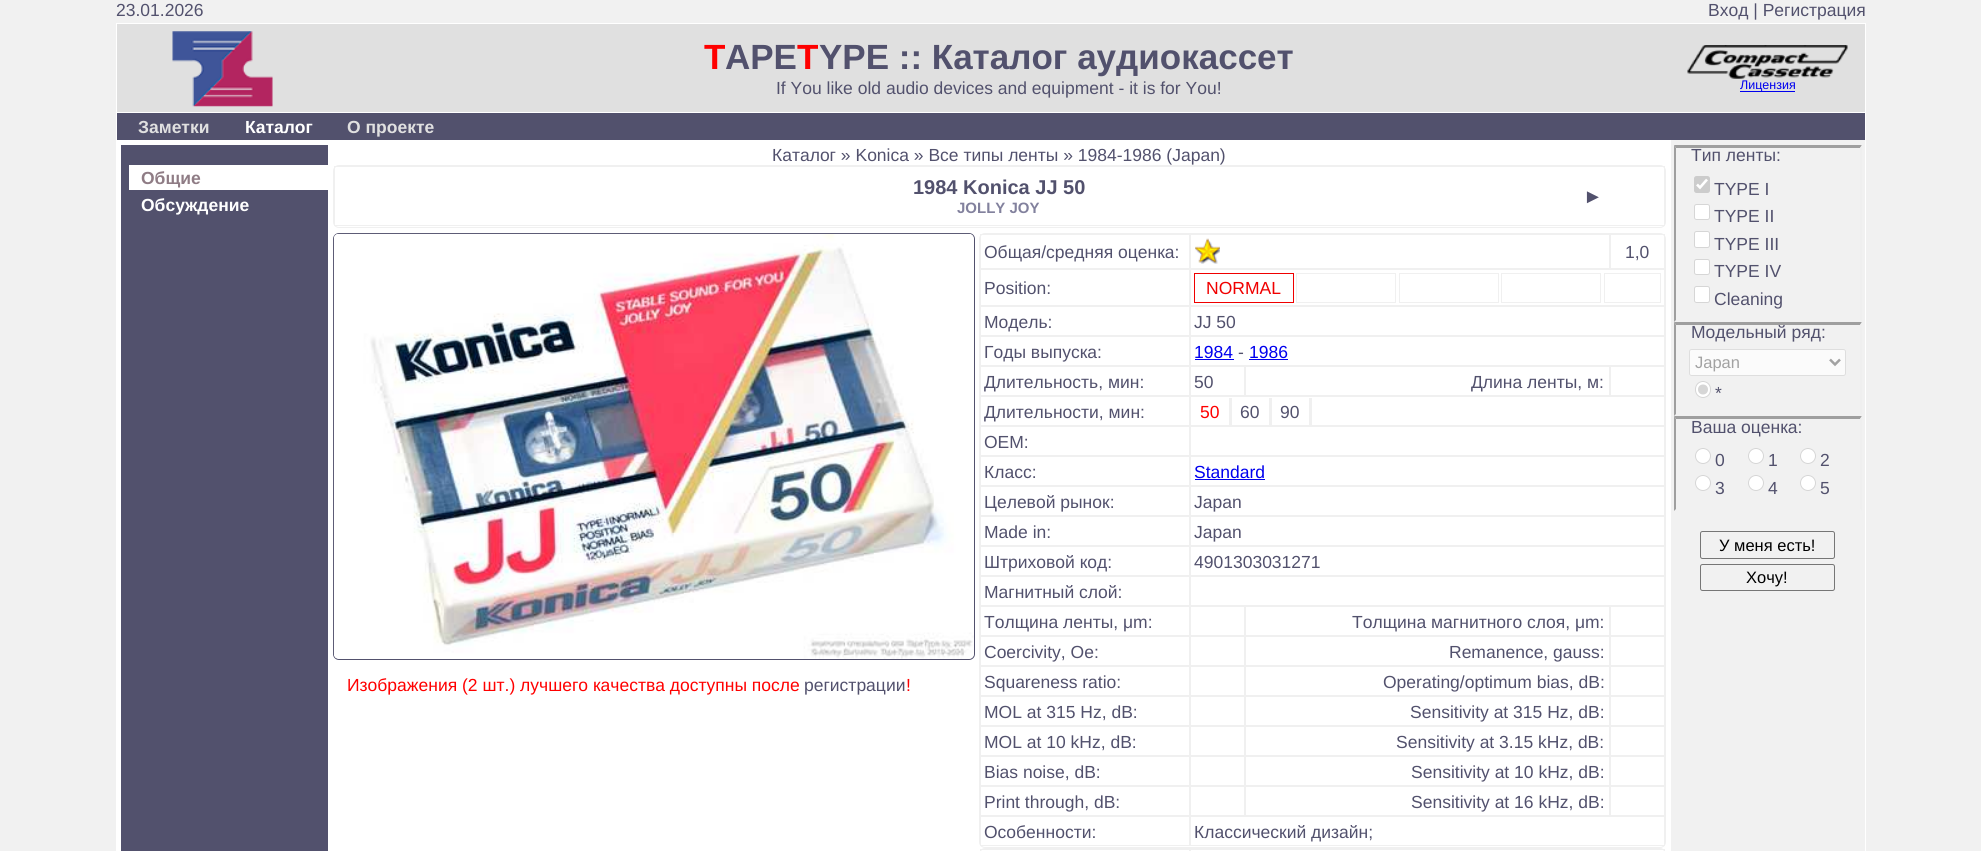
import math
import cairo

surface = cairo.ImageSurface(cairo.FORMAT_RGB24, 1981, 851)
ctx = cairo.Context(surface)
options = cairo.FontOptions()
options.set_hint_metrics(cairo.HINT_METRICS_OFF)
options.set_hint_style(cairo.HINT_STYLE_NONE)
ctx.set_font_options(options)
ctx.set_miter_limit(4)


def set_color(code):
    ctx.set_source_rgb(*(v / 255 for v in bytes.fromhex(code[-6:])))


def draw_text(x, y, s, family, size, color, bold=False, italic=False):
    ctx.select_font_face(family, cairo.FONT_SLANT_ITALIC if italic else cairo.FONT_SLANT_NORMAL, cairo.FONT_WEIGHT_BOLD if bold else cairo.FONT_WEIGHT_NORMAL)
    ctx.set_font_size(size)
    set_color(color)
    ctx.move_to(x, y)
    ctx.show_text(s)


def fill_rect(x, y, w, h, color):
    set_color(color)
    ctx.rectangle(x, y, w, h)
    ctx.fill()


def rounded_rect(x, y, w, h, r):
    ctx.new_sub_path()
    for i, (u, v) in enumerate([(x + w - r, y + h - r), (x + r, y + h - r), (x + r, y + r), (x + w - r, y + r)]):
        ctx.arc(u, v, r, i * math.pi / 2, (i + 1) * math.pi / 2)
    ctx.close_path()


def draw_image(path, x, y, w, h):
    ctx.save()
    ctx.set_source_surface(cairo.ImageSurface.create_from_png(path), x, y)
    ctx.rectangle(x, y, w, h)
    ctx.fill()
    ctx.restore()


set_color("#f1f1f1")
ctx.paint()
draw_text(116, 16, "23.01.2026", "Liberation Sans", 17.5, "#52516d")
draw_text(1708, 16, "Вход | Регистрация", "Liberation Sans", 17.5, "#52516d")
set_color("#e0e0e0")
ctx.rectangle(116.5, 23.5, 1749, 89)
ctx.fill_preserve()
set_color("#ffffff")
ctx.set_line_width(1)
ctx.stroke()
draw_image("assets/img1.png", 172, 31, 101, 76)
draw_text(704, 69, "T", "Liberation Sans", 35, "#ff0000", bold=True)
draw_text(725, 69, "APE", "Liberation Sans", 35, "#52516d", bold=True)
draw_text(797, 69, "T", "Liberation Sans", 35, "#ff0000", bold=True)
draw_text(819, 69, "YPE :: Каталог аудиокассет", "Liberation Sans", 35, "#52516d", bold=True)
draw_text(776, 94, "If You like old audio devices and equipment - it is for You!", "Liberation Sans", 17.5, "#52516d")
draw_image("assets/img2.png", 1687, 45, 161, 34)
fill_rect(1740, 91, 55, 1, "#0000ee")
draw_text(1740, 89, "Лицензия", "Liberation Sans", 12.5, "#0000ee")
fill_rect(117, 113, 1748, 27, "#52516d")
fill_rect(1865, 113, 1, 738, "#ffffff")
fill_rect(116, 113, 1, 27, "#ffffff")
draw_text(138, 133, "Заметки", "Liberation Sans", 17.5, "#e0e0e0", bold=True)
draw_text(245, 133, "Каталог", "Liberation Sans", 17.5, "#ffffff", bold=True)
draw_text(347, 133, "О проекте", "Liberation Sans", 17.5, "#e0e0e0", bold=True)
fill_rect(121, 145, 207, 706, "#52516d")
fill_rect(116, 140, 212, 5, "#ffffff")
fill_rect(116, 140, 5, 711, "#ffffff")
fill_rect(129, 165, 199, 25, "#ffffff")
draw_text(141, 184, "Общие", "Liberation Sans", 17.5, "#8f7c85", bold=True)
draw_text(141, 211, "Обсуждение", "Liberation Sans", 17.5, "#ffffff", bold=True)
fill_rect(328, 140, 1343, 711, "#ffffff")
draw_text(772, 161, "Каталог » Konica » Все типы ленты » 1984-1986 (Japan)", "Liberation Sans", 17.5, "#52516d")
rounded_rect(333.5, 165.5, 1332, 62, 5.5)
set_color("#f0f0f0")
ctx.stroke()
ctx.rectangle(334.5, 166.5, 1330, 59)
ctx.stroke()
draw_text(913, 194, "1984 Konica JJ 50", "Liberation Sans", 20, "#52516d", bold=True)
draw_text(957, 213, "JOLLY JOY", "Liberation Sans", 15, "#82819d", bold=True)
draw_text(1583, 203, "►", "Liberation Sans", 20, "#52516d", bold=True)
rounded_rect(333.5, 233.5, 641, 426, 5.5)
ctx.stroke()
draw_image("assets/img3.png", 333, 233, 641, 426)
draw_text(347, 691, "Изображения (2 шт.) лучшего качества доступны после", "Liberation Sans", 17.5, "#ff0000")
draw_text(804, 691, "регистрации", "Liberation Sans", 17.5, "#52516d")
draw_text(906, 691, "!", "Liberation Sans", 17.5, "#ff0000")
rounded_rect(979.5, 233.5, 686, 614, 5.5)
set_color("#f0f0f0")
ctx.stroke()
ctx.rectangle(980.5, 234.5, 209, 34)
ctx.stroke()
draw_text(984, 258, "Общая/средняя оценка:", "Liberation Sans", 17.5, "#52516d")
ctx.rectangle(1190.5, 234.5, 419, 34)
set_color("#f0f0f0")
ctx.stroke()
draw_image("assets/img4.png", 1195, 238, 25, 26)
ctx.rectangle(1610.5, 234.5, 54, 34)
ctx.stroke()
draw_text(1625, 258, "1,0", "Liberation Sans", 17.5, "#52516d")
ctx.rectangle(980.5, 269.5, 209, 36)
set_color("#f0f0f0")
ctx.stroke()
draw_text(984, 294, "Position:", "Liberation Sans", 17.5, "#52516d")
ctx.rectangle(1190.5, 269.5, 474, 36)
set_color("#f0f0f0")
ctx.stroke()
ctx.rectangle(1194.5, 273.5, 99, 29)
set_color("#f00000")
ctx.stroke()
draw_text(1206, 294, "NORMAL", "Liberation Sans", 17.5, "#f00000")
ctx.rectangle(1296.5, 273.5, 99, 29)
set_color("#f0f0f0")
ctx.stroke()
ctx.rectangle(1399.5, 273.5, 99, 29)
ctx.stroke()
ctx.rectangle(1501.5, 273.5, 99, 29)
ctx.stroke()
ctx.rectangle(1604.5, 273.5, 56, 29)
ctx.stroke()
ctx.rectangle(980.5, 306.5, 209, 29)
ctx.stroke()
draw_text(984, 328, "Модель:", "Liberation Sans", 17.5, "#52516d")
ctx.rectangle(1190.5, 306.5, 474, 29)
set_color("#f0f0f0")
ctx.stroke()
draw_text(1194, 328, "JJ 50", "Liberation Sans", 17.5, "#52516d")
ctx.rectangle(980.5, 336.5, 209, 29)
set_color("#f0f0f0")
ctx.stroke()
draw_text(984, 358, "Годы выпуска:", "Liberation Sans", 17.5, "#52516d")
ctx.rectangle(1190.5, 336.5, 474, 29)
set_color("#f0f0f0")
ctx.stroke()
draw_text(1194, 358, "1984", "Liberation Sans", 17.5, "#0000ee")
fill_rect(1195, 359, 39, 1, "#0000ee")
draw_text(1238, 358, "-", "Liberation Sans", 17.5, "#52516d")
draw_text(1249, 358, "1986", "Liberation Sans", 17.5, "#0000ee")
fill_rect(1249, 359, 39, 1, "#0000ee")
ctx.rectangle(980.5, 366.5, 209, 29)
set_color("#f0f0f0")
ctx.stroke()
draw_text(984, 388, "Длительность, мин:", "Liberation Sans", 17.5, "#52516d")
ctx.rectangle(1190.5, 366.5, 54, 29)
set_color("#f0f0f0")
ctx.stroke()
draw_text(1194, 388, "50", "Liberation Sans", 17.5, "#52516d")
ctx.rectangle(1245.5, 366.5, 364, 29)
set_color("#f0f0f0")
ctx.stroke()
draw_text(1471, 388, "Длина ленты, м:", "Liberation Sans", 17.5, "#52516d")
ctx.rectangle(1610.5, 366.5, 54, 29)
set_color("#f0f0f0")
ctx.stroke()
ctx.rectangle(980.5, 396.5, 209, 29)
ctx.stroke()
draw_text(984, 418, "Длительности, мин:", "Liberation Sans", 17.5, "#52516d")
ctx.rectangle(1190.5, 396.5, 474, 29)
set_color("#f0f0f0")
ctx.stroke()
fill_rect(1229, 398, 3, 27, "#f0f0f0")
draw_text(1200, 418, "50", "Liberation Sans", 17.5, "#ff0000")
fill_rect(1269, 398, 3, 27, "#f0f0f0")
draw_text(1240, 418, "60", "Liberation Sans", 17.5, "#52516d")
fill_rect(1309, 398, 3, 27, "#f0f0f0")
draw_text(1280, 418, "90", "Liberation Sans", 17.5, "#52516d")
ctx.rectangle(980.5, 426.5, 209, 29)
set_color("#f0f0f0")
ctx.stroke()
draw_text(984, 448, "OEM:", "Liberation Sans", 17.5, "#52516d")
ctx.rectangle(1190.5, 426.5, 474, 29)
set_color("#f0f0f0")
ctx.stroke()
ctx.rectangle(980.5, 456.5, 209, 29)
ctx.stroke()
draw_text(984, 478, "Класс:", "Liberation Sans", 17.5, "#52516d")
ctx.rectangle(1190.5, 456.5, 474, 29)
set_color("#f0f0f0")
ctx.stroke()
draw_text(1194, 478, "Standard", "Liberation Sans", 17.5, "#0000ee")
fill_rect(1195, 479, 70, 1, "#0000ee")
ctx.rectangle(980.5, 486.5, 209, 29)
set_color("#f0f0f0")
ctx.stroke()
draw_text(984, 508, "Целевой рынок:", "Liberation Sans", 17.5, "#52516d")
ctx.rectangle(1190.5, 486.5, 474, 29)
set_color("#f0f0f0")
ctx.stroke()
draw_text(1194, 508, "Japan", "Liberation Sans", 17.5, "#52516d")
ctx.rectangle(980.5, 516.5, 209, 29)
set_color("#f0f0f0")
ctx.stroke()
draw_text(984, 538, "Made in:", "Liberation Sans", 17.5, "#52516d")
ctx.rectangle(1190.5, 516.5, 474, 29)
set_color("#f0f0f0")
ctx.stroke()
draw_text(1194, 538, "Japan", "Liberation Sans", 17.5, "#52516d")
ctx.rectangle(980.5, 546.5, 209, 29)
set_color("#f0f0f0")
ctx.stroke()
draw_text(984, 568, "Штриховой код:", "Liberation Sans", 17.5, "#52516d")
ctx.rectangle(1190.5, 546.5, 474, 29)
set_color("#f0f0f0")
ctx.stroke()
draw_text(1194, 568, "4901303031271", "Liberation Sans", 17.5, "#52516d")
ctx.rectangle(980.5, 576.5, 209, 29)
set_color("#f0f0f0")
ctx.stroke()
draw_text(984, 598, "Магнитный слой:", "Liberation Sans", 17.5, "#52516d")
ctx.rectangle(1190.5, 576.5, 474, 29)
set_color("#f0f0f0")
ctx.stroke()
ctx.rectangle(980.5, 606.5, 209, 29)
ctx.stroke()
draw_text(984, 628, "Толщина ленты, μm:", "Liberation Sans", 17.5, "#52516d")
ctx.rectangle(1190.5, 606.5, 54, 29)
set_color("#f0f0f0")
ctx.stroke()
ctx.rectangle(1245.5, 606.5, 364, 29)
ctx.stroke()
draw_text(1352, 628, "Толщина магнитного слоя, μm:", "Liberation Sans", 17.5, "#52516d")
ctx.rectangle(1610.5, 606.5, 54, 29)
set_color("#f0f0f0")
ctx.stroke()
ctx.rectangle(980.5, 636.5, 209, 29)
ctx.stroke()
draw_text(984, 658, "Coercivity, Oe:", "Liberation Sans", 17.5, "#52516d")
ctx.rectangle(1190.5, 636.5, 54, 29)
set_color("#f0f0f0")
ctx.stroke()
ctx.rectangle(1245.5, 636.5, 364, 29)
ctx.stroke()
draw_text(1449, 658, "Remanence, gauss:", "Liberation Sans", 17.5, "#52516d")
ctx.rectangle(1610.5, 636.5, 54, 29)
set_color("#f0f0f0")
ctx.stroke()
ctx.rectangle(980.5, 666.5, 209, 29)
ctx.stroke()
draw_text(984, 688, "Squareness ratio:", "Liberation Sans", 17.5, "#52516d")
ctx.rectangle(1190.5, 666.5, 54, 29)
set_color("#f0f0f0")
ctx.stroke()
ctx.rectangle(1245.5, 666.5, 364, 29)
ctx.stroke()
draw_text(1383, 688, "Operating/optimum bias, dB:", "Liberation Sans", 17.5, "#52516d")
ctx.rectangle(1610.5, 666.5, 54, 29)
set_color("#f0f0f0")
ctx.stroke()
ctx.rectangle(980.5, 696.5, 209, 29)
ctx.stroke()
draw_text(984, 718, "MOL at 315 Hz, dB:", "Liberation Sans", 17.5, "#52516d")
ctx.rectangle(1190.5, 696.5, 54, 29)
set_color("#f0f0f0")
ctx.stroke()
ctx.rectangle(1245.5, 696.5, 364, 29)
ctx.stroke()
draw_text(1410, 718, "Sensitivity at 315 Hz, dB:", "Liberation Sans", 17.5, "#52516d")
ctx.rectangle(1610.5, 696.5, 54, 29)
set_color("#f0f0f0")
ctx.stroke()
ctx.rectangle(980.5, 726.5, 209, 29)
ctx.stroke()
draw_text(984, 748, "MOL at 10 kHz, dB:", "Liberation Sans", 17.5, "#52516d")
ctx.rectangle(1190.5, 726.5, 54, 29)
set_color("#f0f0f0")
ctx.stroke()
ctx.rectangle(1245.5, 726.5, 364, 29)
ctx.stroke()
draw_text(1396, 748, "Sensitivity at 3.15 kHz, dB:", "Liberation Sans", 17.5, "#52516d")
ctx.rectangle(1610.5, 726.5, 54, 29)
set_color("#f0f0f0")
ctx.stroke()
ctx.rectangle(980.5, 756.5, 209, 29)
ctx.stroke()
draw_text(984, 778, "Bias noise, dB:", "Liberation Sans", 17.5, "#52516d")
ctx.rectangle(1190.5, 756.5, 54, 29)
set_color("#f0f0f0")
ctx.stroke()
ctx.rectangle(1245.5, 756.5, 364, 29)
ctx.stroke()
draw_text(1411, 778, "Sensitivity at 10 kHz, dB:", "Liberation Sans", 17.5, "#52516d")
ctx.rectangle(1610.5, 756.5, 54, 29)
set_color("#f0f0f0")
ctx.stroke()
ctx.rectangle(980.5, 786.5, 209, 29)
ctx.stroke()
draw_text(984, 808, "Print through, dB:", "Liberation Sans", 17.5, "#52516d")
ctx.rectangle(1190.5, 786.5, 54, 29)
set_color("#f0f0f0")
ctx.stroke()
ctx.rectangle(1245.5, 786.5, 364, 29)
ctx.stroke()
draw_text(1411, 808, "Sensitivity at 16 kHz, dB:", "Liberation Sans", 17.5, "#52516d")
ctx.rectangle(1610.5, 786.5, 54, 29)
set_color("#f0f0f0")
ctx.stroke()
ctx.rectangle(980.5, 816.5, 209, 29)
ctx.stroke()
draw_text(984, 838, "Особенности:", "Liberation Sans", 17.5, "#52516d")
ctx.rectangle(1190.5, 816.5, 474, 29)
set_color("#f0f0f0")
ctx.stroke()
draw_text(1194, 838, "Классический дизайн;", "Liberation Sans", 17.5, "#52516d")
rounded_rect(979.5, 848.5, 686, 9, 5.5)
set_color("#f0f0f0")
ctx.stroke()
ctx.rectangle(980.5, 849.5, 209, 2)
ctx.stroke()
ctx.rectangle(1190.5, 849.5, 474, 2)
ctx.stroke()
set_color("#9f9f9f")
ctx.new_path()
ctx.move_to(1674, 145)
ctx.line_to(1862, 145)
ctx.line_to(1860, 148)
ctx.line_to(1676, 148)
ctx.close_path()
ctx.fill()
set_color("#efefef")
ctx.new_path()
ctx.move_to(1862, 145)
ctx.line_to(1862, 322)
ctx.line_to(1860, 320)
ctx.line_to(1860, 148)
ctx.close_path()
ctx.fill()
set_color("#9f9f9f")
ctx.new_path()
ctx.move_to(1674, 322)
ctx.line_to(1674, 145)
ctx.line_to(1676, 148)
ctx.line_to(1676, 320)
ctx.close_path()
ctx.fill()
draw_text(1691, 161, "Тип ленты:", "Liberation Sans", 17.5, "#52516d")
set_color("#cccccc")
rounded_rect(1694, 176, 16, 17, 2.5)
ctx.fill()
ctx.new_path()
ctx.move_to(1697, 184.5)
ctx.line_to(1700, 187.5)
ctx.line_to(1707, 179.5)
set_color("#ffffff")
ctx.set_line_width(2.6)
ctx.stroke()
draw_text(1714, 195, "TYPE I", "Liberation Sans", 17.5, "#52516d")
set_color("#ffffff")
rounded_rect(1694, 204, 16, 16, 2.5)
ctx.fill()
rounded_rect(1694.5, 204.5, 15, 15, 2)
ctx.set_source_rgba(0.463, 0.463, 0.463, 0.3)
ctx.set_line_width(1)
ctx.stroke()
draw_text(1714, 222, "TYPE II", "Liberation Sans", 17.5, "#52516d")
set_color("#ffffff")
rounded_rect(1694, 231, 16, 17, 2.5)
ctx.fill()
rounded_rect(1694.5, 231.5, 15, 16, 2)
ctx.set_source_rgba(0.463, 0.463, 0.463, 0.3)
ctx.stroke()
draw_text(1714, 250, "TYPE III", "Liberation Sans", 17.5, "#52516d")
set_color("#ffffff")
rounded_rect(1694, 259, 16, 16, 2.5)
ctx.fill()
rounded_rect(1694.5, 259.5, 15, 15, 2)
ctx.set_source_rgba(0.463, 0.463, 0.463, 0.3)
ctx.stroke()
draw_text(1714, 277, "TYPE IV", "Liberation Sans", 17.5, "#52516d")
set_color("#ffffff")
rounded_rect(1694, 286, 16, 17, 2.5)
ctx.fill()
rounded_rect(1694.5, 286.5, 15, 16, 2)
ctx.set_source_rgba(0.463, 0.463, 0.463, 0.3)
ctx.stroke()
draw_text(1714, 305, "Cleaning", "Liberation Sans", 17.5, "#52516d")
set_color("#9f9f9f")
ctx.new_path()
ctx.move_to(1674, 322)
ctx.line_to(1862, 322)
ctx.line_to(1860, 325)
ctx.line_to(1676, 325)
ctx.close_path()
ctx.fill()
set_color("#efefef")
ctx.new_path()
ctx.move_to(1862, 322)
ctx.line_to(1862, 416)
ctx.line_to(1860, 414)
ctx.line_to(1860, 325)
ctx.close_path()
ctx.fill()
set_color("#9f9f9f")
ctx.new_path()
ctx.move_to(1674, 416)
ctx.line_to(1674, 322)
ctx.line_to(1676, 325)
ctx.line_to(1676, 414)
ctx.close_path()
ctx.fill()
draw_text(1691, 338, "Модельный ряд:", "Liberation Sans", 17.5, "#52516d")
set_color("#fbfbfb")
rounded_rect(1689, 349, 157, 27, 2.5)
ctx.fill()
rounded_rect(1689.5, 349.5, 156, 26, 2)
ctx.set_source_rgba(0.608, 0.608, 0.608, 0.3)
ctx.stroke()
ctx.new_path()
ctx.move_to(1830, 359.5)
ctx.line_to(1835, 364.5)
ctx.line_to(1840, 359.5)
set_color("#a2a2a2")
ctx.set_line_width(2.5)
ctx.stroke()
draw_text(1695, 368, "Japan", "Liberation Sans", 16.5, "#a2a2a2")
set_color("#ffffff")
rounded_rect(1695, 381, 16, 17, 8)
ctx.fill()
rounded_rect(1695.5, 381.5, 15, 16, 7.5)
ctx.set_source_rgba(0.463, 0.463, 0.463, 0.3)
ctx.set_line_width(1)
ctx.stroke()
set_color("#d6d6d6")
ctx.arc(1703, 389.5, 5, 0, 2 * math.pi)
ctx.fill()
draw_text(1715, 399, "*", "Liberation Sans", 17.5, "#52516d")
set_color("#9f9f9f")
ctx.new_path()
ctx.move_to(1674, 416)
ctx.line_to(1862, 416)
ctx.line_to(1860, 419)
ctx.line_to(1676, 419)
ctx.close_path()
ctx.fill()
set_color("#efefef")
ctx.new_path()
ctx.move_to(1862, 416)
ctx.line_to(1862, 511)
ctx.line_to(1860, 509)
ctx.line_to(1860, 419)
ctx.close_path()
ctx.fill()
set_color("#9f9f9f")
ctx.new_path()
ctx.move_to(1674, 511)
ctx.line_to(1674, 416)
ctx.line_to(1676, 419)
ctx.line_to(1676, 509)
ctx.close_path()
ctx.fill()
draw_text(1691, 433, "Ваша оценка:", "Liberation Sans", 17.5, "#52516d")
set_color("#ffffff")
ctx.new_path()
ctx.arc(1703, 456, 8, 0, 2 * math.pi)
ctx.fill()
ctx.arc(1703, 456, 7.5, 0, 2 * math.pi)
ctx.set_source_rgba(0.463, 0.463, 0.463, 0.3)
ctx.stroke()
draw_text(1715, 466, "0", "Liberation Sans", 17.5, "#52516d")
set_color("#ffffff")
ctx.new_path()
ctx.arc(1756, 456, 8, 0, 2 * math.pi)
ctx.fill()
ctx.arc(1756, 456, 7.5, 0, 2 * math.pi)
ctx.set_source_rgba(0.463, 0.463, 0.463, 0.3)
ctx.stroke()
draw_text(1768, 466, "1", "Liberation Sans", 17.5, "#52516d")
set_color("#ffffff")
ctx.new_path()
ctx.arc(1808, 456, 8, 0, 2 * math.pi)
ctx.fill()
ctx.arc(1808, 456, 7.5, 0, 2 * math.pi)
ctx.set_source_rgba(0.463, 0.463, 0.463, 0.3)
ctx.stroke()
draw_text(1820, 466, "2", "Liberation Sans", 17.5, "#52516d")
set_color("#ffffff")
ctx.new_path()
ctx.arc(1703, 483, 8, 0, 2 * math.pi)
ctx.fill()
ctx.arc(1703, 483, 7.5, 0, 2 * math.pi)
ctx.set_source_rgba(0.463, 0.463, 0.463, 0.3)
ctx.stroke()
draw_text(1715, 494, "3", "Liberation Sans", 17.5, "#52516d")
set_color("#ffffff")
ctx.new_path()
ctx.arc(1756, 483, 8, 0, 2 * math.pi)
ctx.fill()
ctx.arc(1756, 483, 7.5, 0, 2 * math.pi)
ctx.set_source_rgba(0.463, 0.463, 0.463, 0.3)
ctx.stroke()
draw_text(1768, 494, "4", "Liberation Sans", 17.5, "#52516d")
set_color("#ffffff")
ctx.new_path()
ctx.arc(1808, 483, 8, 0, 2 * math.pi)
ctx.fill()
ctx.arc(1808, 483, 7.5, 0, 2 * math.pi)
ctx.set_source_rgba(0.463, 0.463, 0.463, 0.3)
ctx.stroke()
draw_text(1820, 494, "5", "Liberation Sans", 17.5, "#52516d")
rounded_rect(1700.5, 531.5, 134, 27, 2)
set_color("#767676")
ctx.stroke()
draw_text(1719, 551, "У меня есть!", "Liberation Sans", 16.5, "#000000")
rounded_rect(1700.5, 564.5, 134, 26, 2)
set_color("#767676")
ctx.stroke()
draw_text(1746, 583, "Хочу!", "Liberation Sans", 16.5, "#000000")
surface.write_to_png("output.png")
